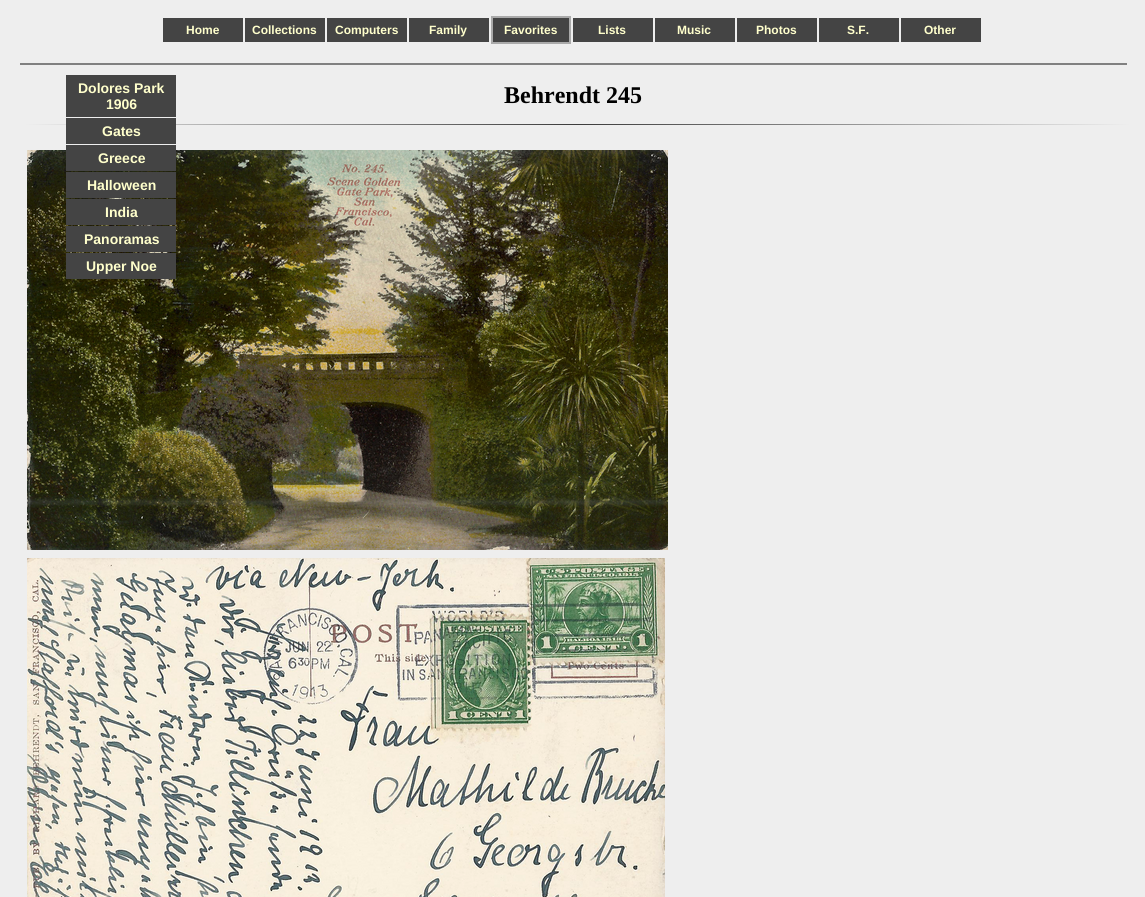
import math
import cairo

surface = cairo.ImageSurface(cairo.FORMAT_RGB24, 1145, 897)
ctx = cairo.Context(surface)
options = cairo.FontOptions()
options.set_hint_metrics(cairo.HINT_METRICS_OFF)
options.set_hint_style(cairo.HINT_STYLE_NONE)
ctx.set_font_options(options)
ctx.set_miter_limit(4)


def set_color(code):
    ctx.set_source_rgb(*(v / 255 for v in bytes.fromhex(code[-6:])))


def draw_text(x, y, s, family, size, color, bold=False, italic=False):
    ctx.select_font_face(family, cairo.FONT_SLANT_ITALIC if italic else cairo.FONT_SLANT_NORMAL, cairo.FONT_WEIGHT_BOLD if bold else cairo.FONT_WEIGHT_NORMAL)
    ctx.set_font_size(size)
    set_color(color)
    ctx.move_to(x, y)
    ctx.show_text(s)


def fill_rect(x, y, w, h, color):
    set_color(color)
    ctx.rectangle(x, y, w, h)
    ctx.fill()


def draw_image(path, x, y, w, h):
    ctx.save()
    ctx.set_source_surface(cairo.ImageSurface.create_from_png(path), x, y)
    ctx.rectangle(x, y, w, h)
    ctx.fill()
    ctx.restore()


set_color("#eeeeee")
ctx.paint()
fill_rect(163, 18, 80, 24, "#444444")
draw_text(186, 34, "Home", "Liberation Sans", 12, "#ffffcc", bold=True)
fill_rect(245, 18, 80, 24, "#444444")
draw_text(252, 34, "Collections", "Liberation Sans", 12, "#ffffcc", bold=True)
fill_rect(327, 18, 80, 24, "#444444")
draw_text(335, 34, "Computers", "Liberation Sans", 12, "#ffffcc", bold=True)
fill_rect(409, 18, 80, 24, "#444444")
draw_text(429, 34, "Family", "Liberation Sans", 12, "#ffffcc", bold=True)
ctx.rectangle(492, 17, 78, 26)
set_color("#aaaaaa")
ctx.stroke()
fill_rect(493, 18, 76, 24, "#444444")
draw_text(504, 34, "Favorites", "Liberation Sans", 12, "#ffffcc", bold=True)
fill_rect(573, 18, 80, 24, "#444444")
draw_text(598, 34, "Lists", "Liberation Sans", 12, "#ffffcc", bold=True)
fill_rect(655, 18, 80, 24, "#444444")
draw_text(677, 34, "Music", "Liberation Sans", 12, "#ffffcc", bold=True)
fill_rect(737, 18, 80, 24, "#444444")
draw_text(756, 34, "Photos", "Liberation Sans", 12, "#ffffcc", bold=True)
fill_rect(819, 18, 80, 24, "#444444")
draw_text(847, 34, "S.F.", "Liberation Sans", 12, "#ffffcc", bold=True)
fill_rect(901, 18, 80, 24, "#444444")
draw_text(924, 34, "Other", "Liberation Sans", 12, "#ffffcc", bold=True)
fill_rect(20, 63, 1107, 2, "#808080")
fill_rect(66, 75, 110, 42, "#444444")
draw_text(78, 93, "Dolores Park", "Liberation Sans", 14, "#ffffcc", bold=True)
draw_text(106, 109, "1906", "Liberation Sans", 14, "#ffffcc", bold=True)
gradient = cairo.LinearGradient(25, 125, 1130, 124)
gradient.add_color_stop_rgba(0, 0.933, 0.933, 0.933, 1)
gradient.add_color_stop_rgba(0.5, 0.235, 0.235, 0.235, 1)
gradient.add_color_stop_rgba(1, 0.933, 0.933, 0.933, 1)
ctx.set_source(gradient)
ctx.rectangle(25, 124, 1105, 1)
ctx.fill()
fill_rect(66, 118, 110, 26, "#444444")
draw_text(102, 136, "Gates", "Liberation Sans", 14, "#ffffcc", bold=True)
draw_image("assets/img1.png", 27, 150, 641, 400)
fill_rect(66, 145, 110, 26, "#444444")
draw_text(98, 163, "Greece", "Liberation Sans", 14, "#ffffcc", bold=True)
fill_rect(66, 172, 110, 26, "#444444")
draw_text(87, 190, "Halloween", "Liberation Sans", 14, "#ffffcc", bold=True)
fill_rect(66, 199, 110, 26, "#444444")
draw_text(105, 217, "India", "Liberation Sans", 14, "#ffffcc", bold=True)
fill_rect(66, 226, 110, 26, "#444444")
draw_text(84, 244, "Panoramas", "Liberation Sans", 14, "#ffffcc", bold=True)
fill_rect(66, 253, 110, 26, "#444444")
draw_text(86, 271, "Upper Noe", "Liberation Sans", 14, "#ffffcc", bold=True)
draw_text(504, 103, "Behrendt 245", "Liberation Serif", 24, "#000000", bold=True)
draw_image("assets/img2.png", 27, 558, 638, 339)
surface.write_to_png("output.png")
